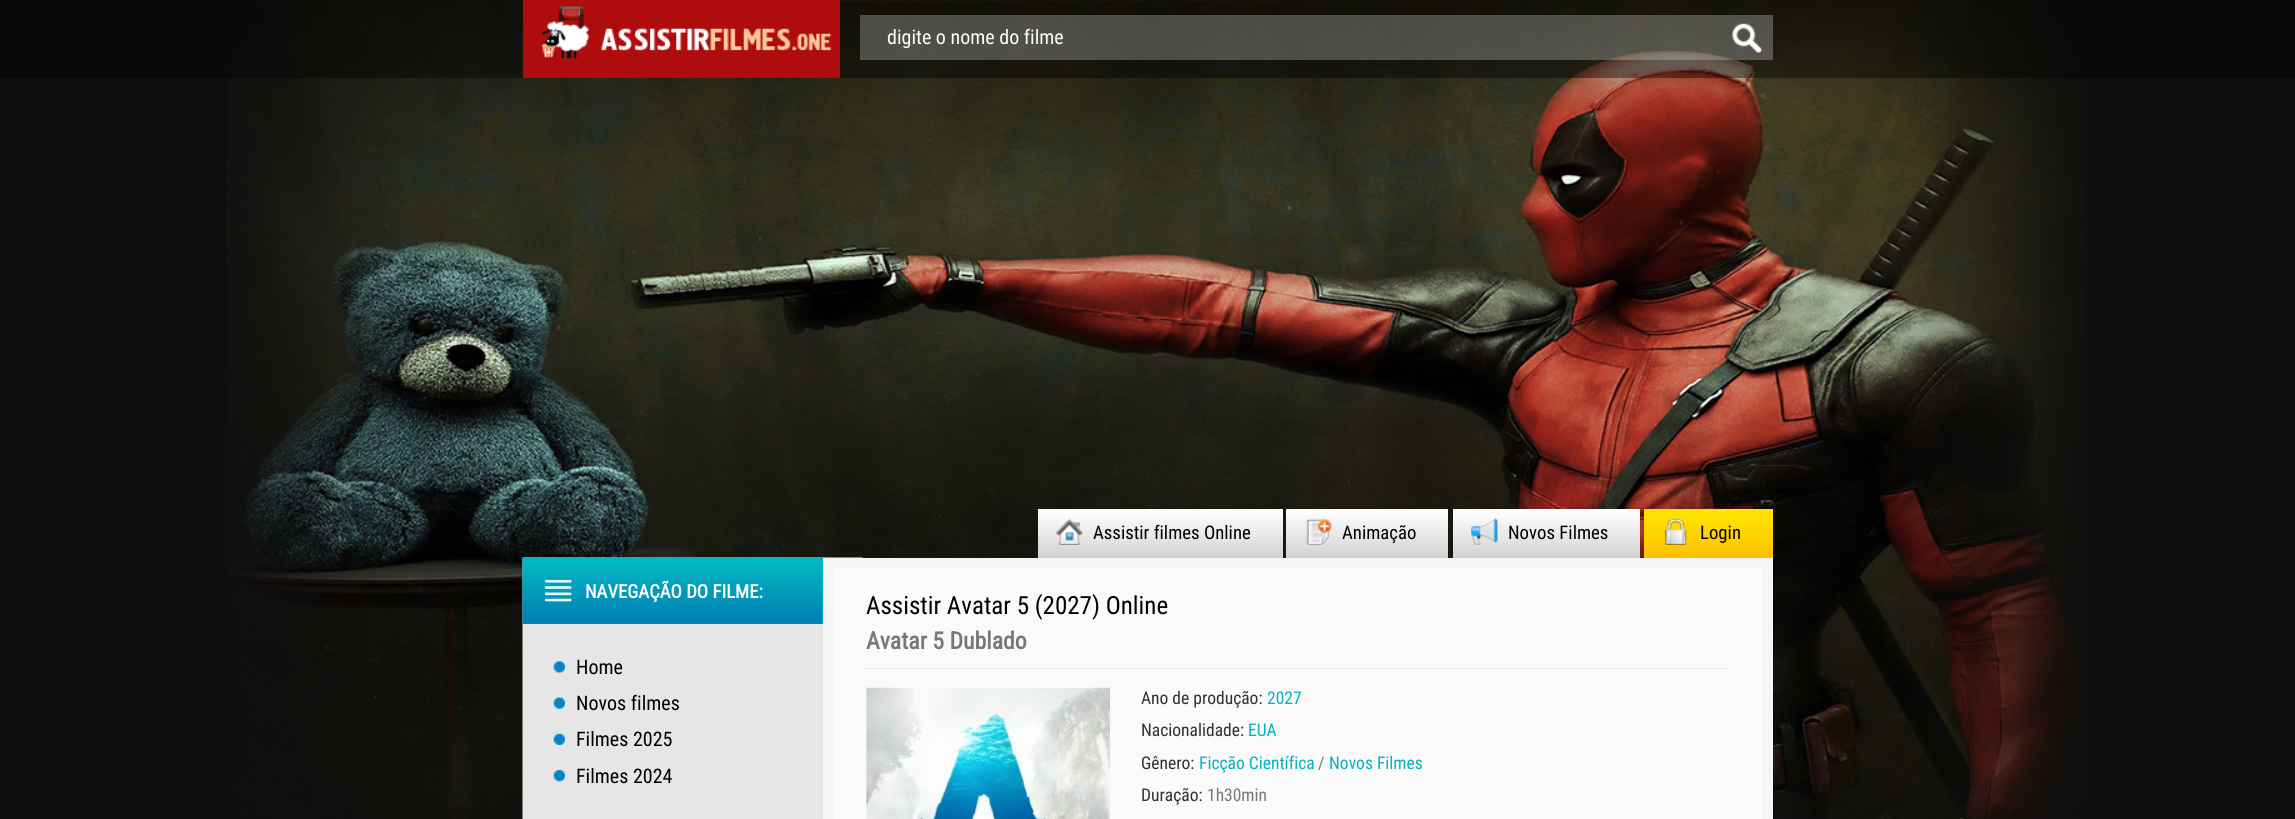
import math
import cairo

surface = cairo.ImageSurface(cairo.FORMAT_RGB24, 2295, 819)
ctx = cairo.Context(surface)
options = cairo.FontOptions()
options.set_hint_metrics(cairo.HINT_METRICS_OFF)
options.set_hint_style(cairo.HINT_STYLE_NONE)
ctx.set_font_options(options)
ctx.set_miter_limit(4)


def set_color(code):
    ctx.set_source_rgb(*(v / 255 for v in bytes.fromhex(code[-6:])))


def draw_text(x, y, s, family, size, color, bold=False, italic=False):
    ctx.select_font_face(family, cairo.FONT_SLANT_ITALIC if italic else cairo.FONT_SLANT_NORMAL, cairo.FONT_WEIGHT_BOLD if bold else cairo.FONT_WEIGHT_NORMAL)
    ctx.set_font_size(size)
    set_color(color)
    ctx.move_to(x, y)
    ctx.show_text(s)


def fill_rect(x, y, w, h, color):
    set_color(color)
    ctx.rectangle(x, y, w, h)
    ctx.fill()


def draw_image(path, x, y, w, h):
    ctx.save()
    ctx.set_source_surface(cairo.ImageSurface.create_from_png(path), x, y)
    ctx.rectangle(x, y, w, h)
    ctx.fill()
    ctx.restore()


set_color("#0e0e0e")
ctx.paint()
draw_image("assets/img1.png", 226, 0, 1861, 819)
ctx.set_source_rgba(0, 0, 0, 0.42)
ctx.rectangle(0, 0, 2295, 78)
ctx.fill()
fill_rect(523, 0, 317, 78, "#ae0c0d")
draw_image("assets/img2.png", 541, 6, 291, 53)
ctx.set_source_rgba(1, 1, 1, 0.25)
ctx.rectangle(860, 15, 913, 45)
ctx.fill()
draw_text(887, 44, "digite o nome do filme", "Roboto Condensed", 20, "#ffffff")
draw_image("assets/img3.png", 1732, 23, 30, 30)
gradient = cairo.LinearGradient(1160, 509, 1160, 558)
gradient.add_color_stop_rgba(0.05, 1, 1, 1, 1)
gradient.add_color_stop_rgba(1, 0.824, 0.824, 0.824, 1)
ctx.set_source(gradient)
ctx.rectangle(1038, 509, 245, 49)
ctx.fill()
draw_image("assets/img4.png", 1056, 518, 27, 27)
draw_text(1093, 539, "Assistir filmes Online", "Roboto Condensed", 18.75, "#000000")
gradient = cairo.LinearGradient(1367, 509, 1367, 558)
gradient.add_color_stop_rgba(0.05, 1, 1, 1, 1)
gradient.add_color_stop_rgba(1, 0.824, 0.824, 0.824, 1)
ctx.set_source(gradient)
ctx.rectangle(1286, 509, 162, 49)
ctx.fill()
draw_image("assets/img5.png", 1306, 518, 26, 27)
draw_text(1342, 539, "Animação", "Roboto Condensed", 18.75, "#000000")
gradient = cairo.LinearGradient(1546, 509, 1546, 558)
gradient.add_color_stop_rgba(0.05, 1, 1, 1, 1)
gradient.add_color_stop_rgba(1, 0.824, 0.824, 0.824, 1)
ctx.set_source(gradient)
ctx.rectangle(1453, 509, 187, 49)
ctx.fill()
draw_image("assets/img6.png", 1471, 518, 27, 27)
draw_text(1508, 539, "Novos Filmes", "Roboto Condensed", 18.75, "#000000")
gradient = cairo.LinearGradient(1708, 509, 1708, 558)
gradient.add_color_stop_rgba(0.05, 1, 0.894, 0, 1)
gradient.add_color_stop_rgba(1, 1, 0.753, 0, 1)
ctx.set_source(gradient)
ctx.rectangle(1644, 509, 129, 49)
ctx.fill()
draw_image("assets/img7.png", 1664, 518, 23, 27)
draw_text(1700, 539, "Login", "Roboto Condensed", 18.75, "#000000")
fill_rect(862, 558, 911, 261, "#f5f5f5")
draw_image("assets/img8.png", 522, 557, 341, 262)
fill_rect(523, 558, 300, 66, "#04b8c3")
draw_image("assets/img9.png", 522, 557, 301, 67)
draw_text(585, 598, "NAVEGAÇÃO DO FILME:", "Roboto Condensed", 18.75, "#ffffff", bold=True)
fill_rect(523, 624, 300, 195, "#e6e6e6")
draw_image("assets/img10.png", 553, 661, 12, 12)
draw_text(576, 674, "Home", "Roboto Condensed", 20, "#000000")
draw_image("assets/img11.png", 553, 697, 12, 12)
draw_text(576, 710, "Novos filmes", "Roboto Condensed", 20, "#000000")
draw_image("assets/img12.png", 553, 733, 12, 12)
draw_text(576, 746, "Filmes 2025", "Roboto Condensed", 20, "#000000")
draw_image("assets/img13.png", 553, 770, 12, 12)
draw_text(576, 783, "Filmes 2024", "Roboto Condensed", 20, "#000000")
fill_rect(833, 568, 930, 251, "#fafafa")
fill_rect(866, 668, 863, 1, "#e9e9e9")
draw_text(866, 614, "Assistir Avatar 5 (2027) Online", "Roboto Condensed", 25, "#000000")
draw_text(866, 649, "Avatar 5 Dublado", "Roboto Condensed", 23.75, "#787878", bold=True)
draw_image("assets/img14.png", 866, 687, 244, 132)
draw_text(1141, 704, "Ano de produção:", "Roboto Condensed", 17.5, "#303030")
draw_text(1267, 704, "2027", "Roboto Condensed", 17.5, "#03b1c1")
draw_text(1141, 736, "Nacionalidade:", "Roboto Condensed", 17.5, "#303030")
draw_text(1248, 736, "EUA", "Roboto Condensed", 17.5, "#03b1c1")
draw_text(1141, 769, "Gênero:", "Roboto Condensed", 17.5, "#303030")
draw_text(1199, 769, "Ficção Científica", "Roboto Condensed", 17.5, "#03b1c1")
draw_text(1318, 769, "/", "Roboto Condensed", 17.5, "#787878")
draw_text(1329, 769, "Novos Filmes", "Roboto Condensed", 17.5, "#03b1c1")
draw_text(1141, 801, "Duração:", "Roboto Condensed", 17.5, "#303030")
draw_text(1207, 801, "1h30min", "Roboto Condensed", 17.5, "#787878")
surface.write_to_png("output.png")
